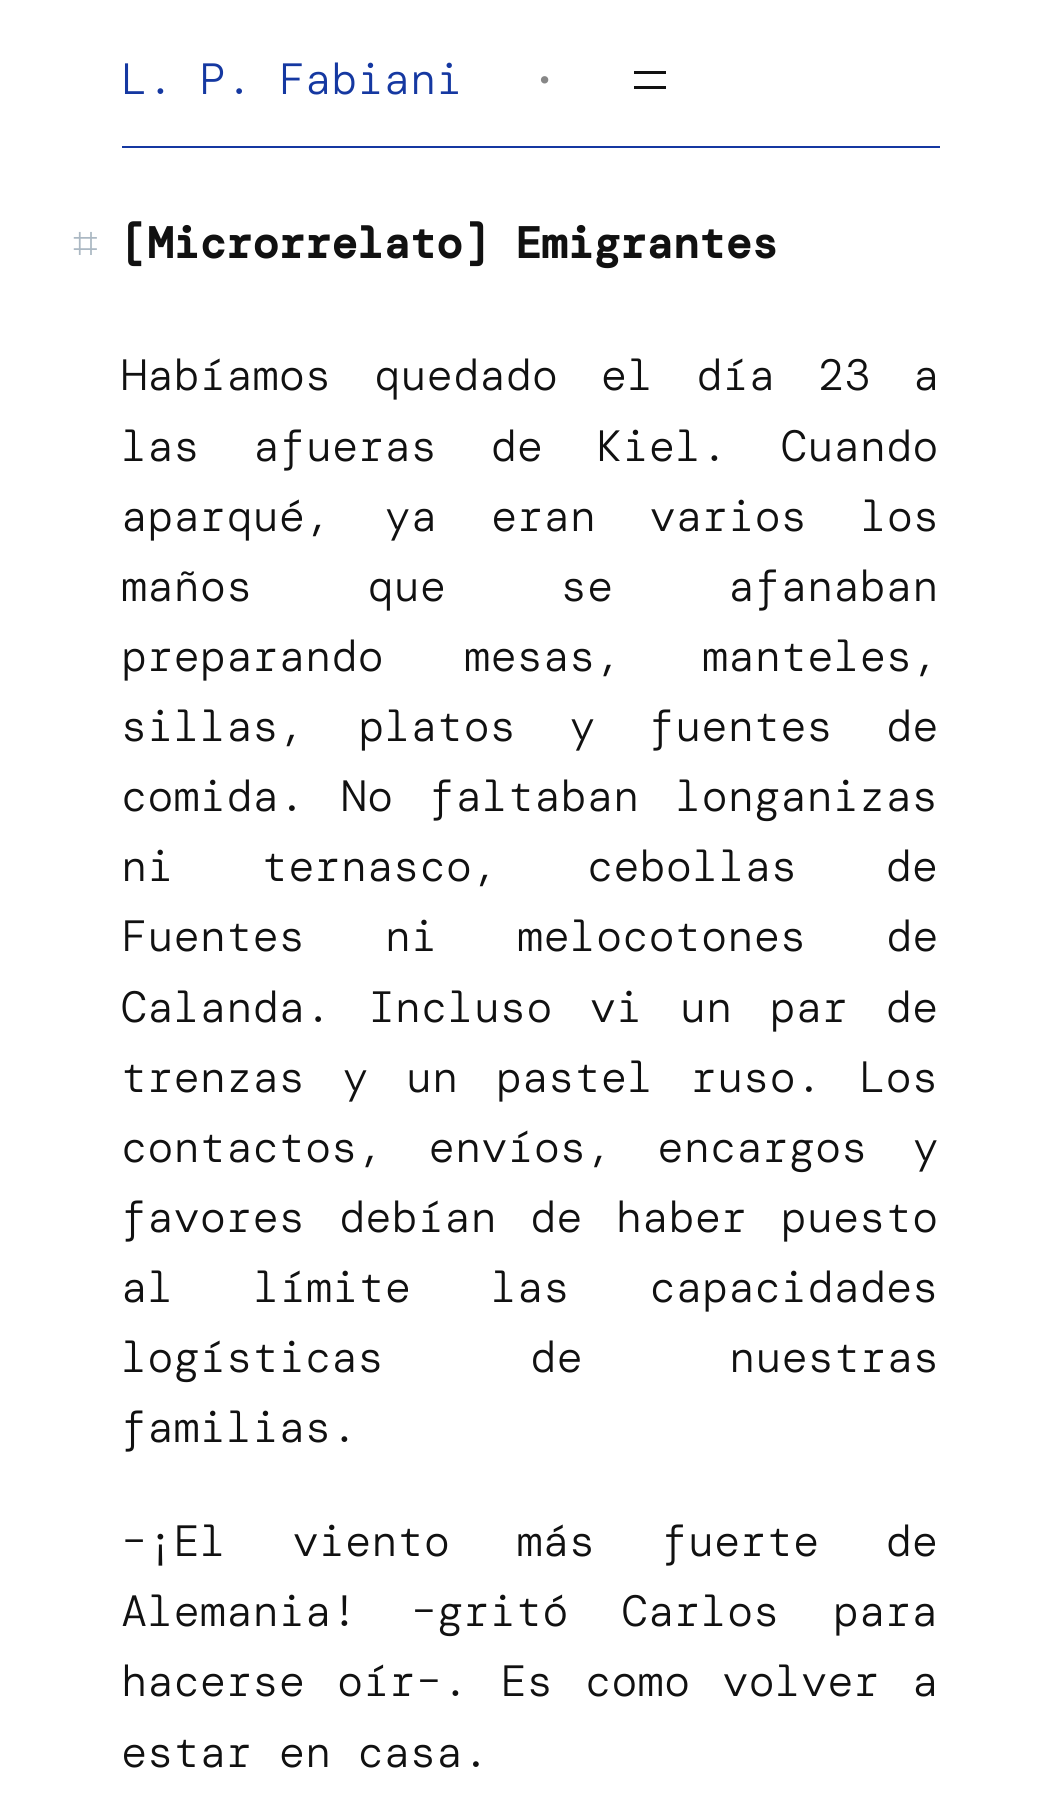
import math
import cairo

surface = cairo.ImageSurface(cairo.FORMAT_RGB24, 1059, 1796)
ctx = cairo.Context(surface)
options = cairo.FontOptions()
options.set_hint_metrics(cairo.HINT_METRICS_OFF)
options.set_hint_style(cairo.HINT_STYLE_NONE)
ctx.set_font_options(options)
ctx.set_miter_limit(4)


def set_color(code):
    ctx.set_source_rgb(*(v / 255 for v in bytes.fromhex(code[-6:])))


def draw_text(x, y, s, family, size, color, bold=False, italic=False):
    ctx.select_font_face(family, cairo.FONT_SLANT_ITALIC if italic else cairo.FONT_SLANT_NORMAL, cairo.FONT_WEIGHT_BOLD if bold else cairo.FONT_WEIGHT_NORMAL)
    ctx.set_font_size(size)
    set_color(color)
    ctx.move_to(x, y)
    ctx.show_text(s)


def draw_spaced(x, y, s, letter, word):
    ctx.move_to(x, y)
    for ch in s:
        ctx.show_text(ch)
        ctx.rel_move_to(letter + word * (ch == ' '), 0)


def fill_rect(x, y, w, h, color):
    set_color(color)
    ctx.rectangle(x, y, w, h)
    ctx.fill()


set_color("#ffffff")
ctx.paint()
draw_text(121, 94, "L. P. Fabiani", "DM Mono Light", 43.8, "#1538a1")
draw_text(535, 91, "•", "DM Mono Light", 32, "#878787")
fill_rect(634, 71, 32, 3, "#111111")
fill_rect(634, 86, 32, 3, "#111111")
fill_rect(122, 146, 818, 2, "#1538a1")
draw_text(73, 258, "⌗", "FreeSerif", 43.8, "#abb8c3")
draw_text(121, 258, "[Microrrelato] Emigrantes", "DM Mono", 43.8, "#111111", bold=True)
ctx.select_font_face("DM Mono Light")
draw_spaced(121, 390, "Habíamos quedado el día 23 a", 0, 16.5)
draw_spaced(121, 461, "las afueras de Kiel. Cuando", 0, 27)
draw_spaced(121, 531, "aparqué, ya", 0, 27)
draw_spaced(491, 531, "eran varios los", 0, 27)
draw_spaced(121, 601, "maños que se afanaban", 0, 88.5)
draw_spaced(121, 671, "preparando mesas, manteles,", 0, 54)
draw_spaced(121, 741, "sillas, platos y fuentes de", 0, 27)
draw_spaced(121, 811, "comida. No faltaban longanizas", 0, 9.5)
draw_spaced(121, 881, "ni ternasco,", 0, 62)
draw_spaced(587, 881, "cebollas de", 0, 62)
draw_spaced(121, 951, "Fuentes ni melocotones de", 0, 53.5)
draw_spaced(121, 1022, "Calanda. Incluso vi un par de", 0, 11)
draw_spaced(121, 1092, "trenzas y un pastel ruso. Los", 0, 11)
draw_spaced(121, 1162, "contactos, envíos, encargos y", 0, 18.5)
draw_text(121, 1232, "favores", "DM Mono Light", 43.8, "#111111")
draw_spaced(339, 1232, "debían de haber puesto", 0, 7)
draw_spaced(121, 1302, "al límite las capacidades", 0, 53.5)
draw_spaced(121, 1372, "logísticas de nuestras", 0, 120)
draw_text(121, 1442, "familias.", "DM Mono Light", 43.8, "#111111")
draw_spaced(121, 1556, "–¡El viento más fuerte de", 0, 40)
draw_spaced(121, 1626, "Alemania! –gritó Carlos para", 0, 27)
draw_spaced(121, 1696, "hacerse oír–. Es como volver a", 0, 5.75)
draw_text(121, 1767, "estar en casa.", "DM Mono Light", 43.8, "#111111")
surface.write_to_png("output.png")
